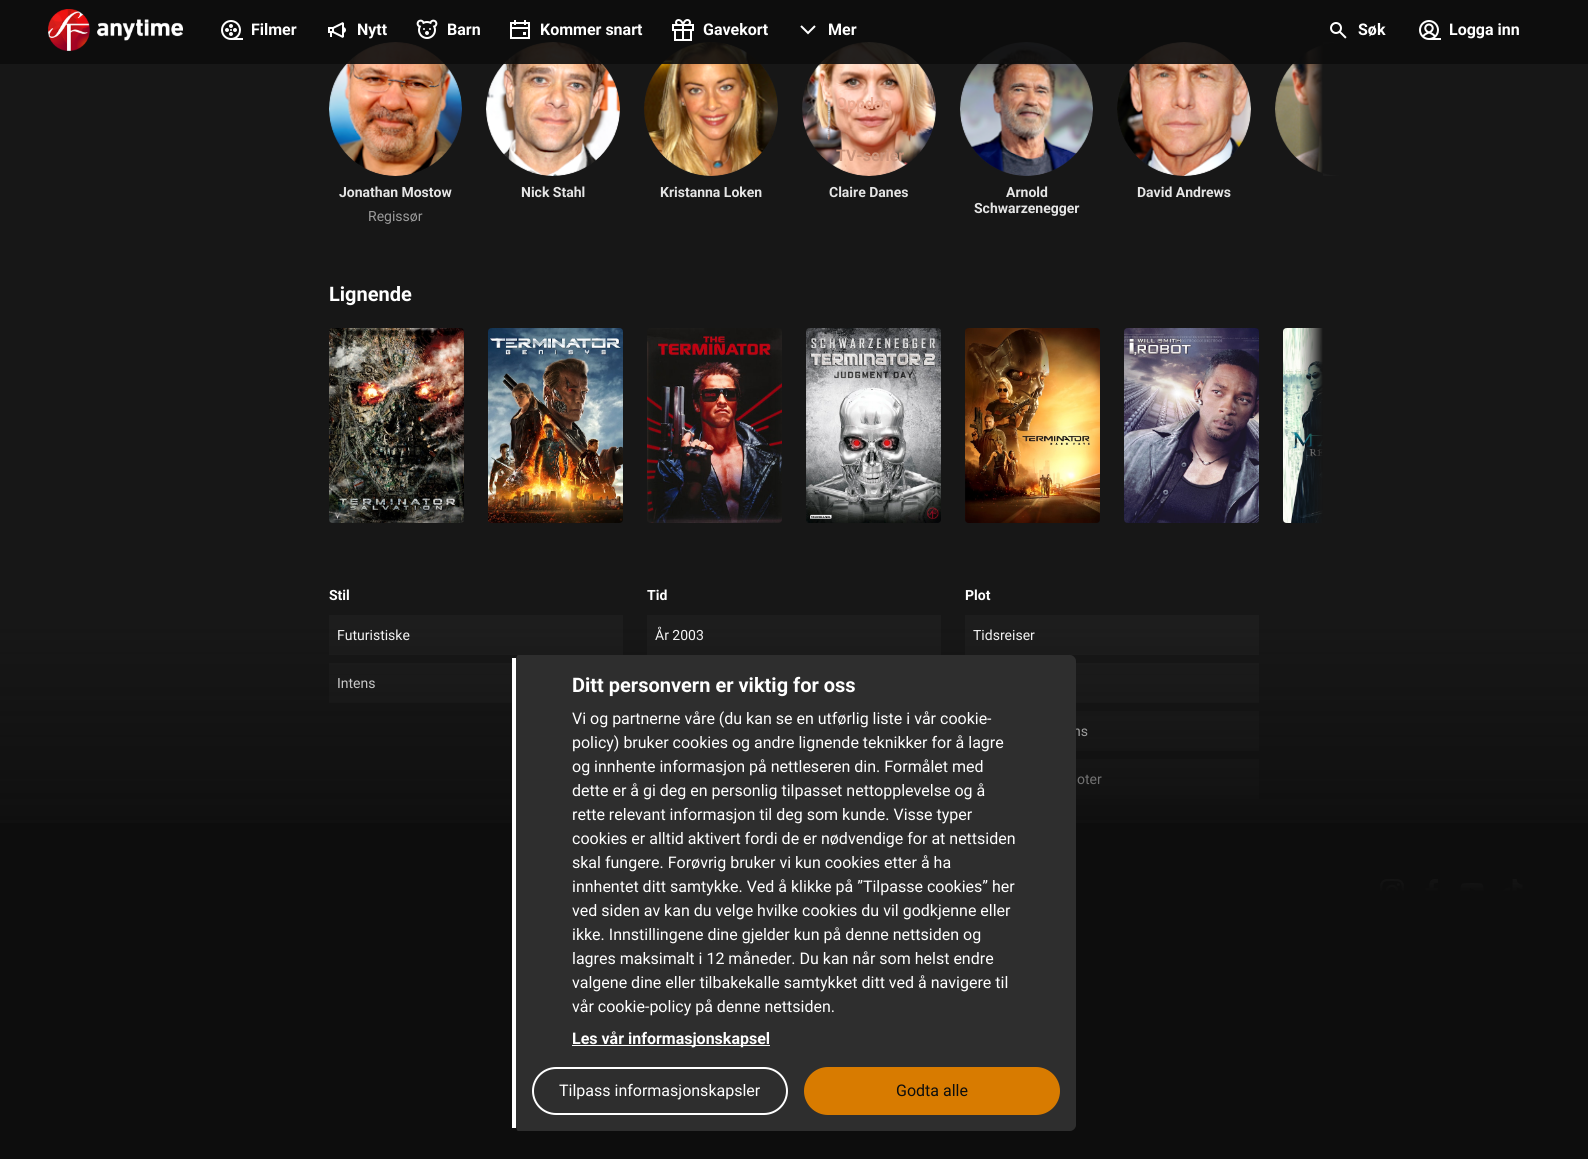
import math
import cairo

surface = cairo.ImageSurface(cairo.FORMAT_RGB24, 1588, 1159)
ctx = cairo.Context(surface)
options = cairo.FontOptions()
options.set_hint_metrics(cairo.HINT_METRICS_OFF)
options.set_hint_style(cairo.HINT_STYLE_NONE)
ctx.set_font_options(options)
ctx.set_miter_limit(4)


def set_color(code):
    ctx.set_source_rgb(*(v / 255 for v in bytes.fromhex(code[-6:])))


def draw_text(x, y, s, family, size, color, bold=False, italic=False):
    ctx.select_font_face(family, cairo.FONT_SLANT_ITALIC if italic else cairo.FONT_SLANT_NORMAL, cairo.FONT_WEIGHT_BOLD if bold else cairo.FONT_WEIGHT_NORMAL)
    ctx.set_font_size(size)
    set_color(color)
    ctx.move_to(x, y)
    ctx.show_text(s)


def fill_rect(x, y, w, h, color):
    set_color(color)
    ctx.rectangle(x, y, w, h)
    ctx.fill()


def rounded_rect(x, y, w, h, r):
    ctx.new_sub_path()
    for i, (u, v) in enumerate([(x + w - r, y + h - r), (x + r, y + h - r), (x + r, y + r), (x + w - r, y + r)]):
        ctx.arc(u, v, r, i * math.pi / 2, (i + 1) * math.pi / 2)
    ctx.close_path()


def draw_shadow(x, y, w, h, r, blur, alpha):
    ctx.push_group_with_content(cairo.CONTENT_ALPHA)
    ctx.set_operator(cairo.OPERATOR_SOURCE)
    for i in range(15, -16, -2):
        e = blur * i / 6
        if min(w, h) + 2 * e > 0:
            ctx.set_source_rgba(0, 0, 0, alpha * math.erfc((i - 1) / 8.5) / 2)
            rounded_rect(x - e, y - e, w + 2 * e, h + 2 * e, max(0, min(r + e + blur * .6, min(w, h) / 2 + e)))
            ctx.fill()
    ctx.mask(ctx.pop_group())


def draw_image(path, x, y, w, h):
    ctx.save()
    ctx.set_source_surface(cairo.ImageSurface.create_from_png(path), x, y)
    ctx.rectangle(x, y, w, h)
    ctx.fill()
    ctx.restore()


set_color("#171717")
ctx.paint()
set_color("#1d1d1d")
ctx.new_path()
ctx.move_to(1342, 42)
ctx.line_to(1323, 42)
ctx.line_to(1323, 176)
ctx.line_to(1342, 176)
ctx.curve_to(1305, 176, 1275, 146, 1275, 109)
ctx.curve_to(1275, 72, 1305, 42, 1342, 42)
ctx.close_path()
ctx.fill()
draw_image("assets/img10.png", 1275, 44, 48, 129)
gradient = cairo.LinearGradient(1299, 129, 1323, 129)
gradient.add_color_stop_rgba(0, 0.09, 0.09, 0.09, 0)
gradient.add_color_stop_rgba(1, 0.09, 0.09, 0.09, 1)
ctx.set_source(gradient)
ctx.rectangle(1300, 44, 23, 129)
ctx.fill()
set_color("#1d1d1d")
rounded_rect(329, 42, 133, 134, 66.5)
ctx.fill()
draw_image("assets/img11.png", 329, 42, 133, 134)
ctx.arc(553, 109, 67, 0, 2 * math.pi)
ctx.fill()
draw_image("assets/img12.png", 486, 42, 134, 134)
ctx.arc(711, 109, 67, 0, 2 * math.pi)
ctx.fill()
draw_image("assets/img13.png", 644, 42, 134, 134)
ctx.arc(869, 109, 67, 0, 2 * math.pi)
ctx.fill()
draw_image("assets/img14.png", 802, 42, 134, 134)
rounded_rect(960, 42, 133, 134, 66.5)
ctx.fill()
draw_image("assets/img15.png", 960, 42, 133, 134)
ctx.arc(1184, 109, 67, 0, 2 * math.pi)
ctx.fill()
draw_image("assets/img16.png", 1117, 42, 134, 134)
ctx.set_source_rgba(0.051, 0.051, 0.051, 0.9)
ctx.rectangle(0, 0, 1588, 64)
ctx.fill()
draw_image("assets/img1.png", 48, 9, 135, 42)
draw_image("assets/img2.png", 221, 20, 22, 20)
draw_text(251, 35, "Filmer", "Roboto", 16, "#ffffff", bold=True)
draw_image("assets/img3.png", 328, 22, 18, 16)
draw_text(357, 35, "Nytt", "Roboto", 16, "#ffffff", bold=True)
draw_image("assets/img4.png", 416, 19, 22, 20)
draw_text(447, 35, "Barn", "Roboto", 16, "#ffffff", bold=True)
draw_image("assets/img5.png", 510, 20, 20, 19)
draw_text(540, 35, "Kommer snart", "Roboto", 16, "#ffffff", bold=True)
draw_image("assets/img6.png", 672, 19, 22, 22)
draw_text(703, 35, "Gavekort", "Roboto", 16, "#ffffff", bold=True)
draw_image("assets/img7.png", 800, 25, 16, 10)
draw_text(828, 35, "Mer", "Roboto", 16, "#ffffff", bold=True)
draw_text(836, 109, "Oppdag", "Roboto", 16, "#eaab93", bold=True)
draw_text(836, 161, "TV-serier", "Roboto", 16, "#cb947b", bold=True)
draw_image("assets/img8.png", 1330, 22, 17, 17)
draw_text(1358, 35, "Søk", "Roboto", 16, "#ffffff", bold=True)
draw_image("assets/img9.png", 1419, 20, 22, 20)
draw_text(1449, 35, "Logga inn", "Roboto", 16, "#ffffff", bold=True)
draw_text(339, 197, "Jonathan Mostow", "Roboto", 14, "#e5e5e5", bold=True)
draw_text(368, 221, "Regissør", "Roboto", 14, "#9c9c9c")
draw_text(521, 197, "Nick Stahl", "Roboto", 14, "#e5e5e5", bold=True)
draw_text(660, 197, "Kristanna Loken", "Roboto", 14, "#e5e5e5", bold=True)
draw_text(829, 197, "Claire Danes", "Roboto", 14, "#e5e5e5", bold=True)
draw_text(1006, 197, "Arnold", "Roboto", 14, "#e5e5e5", bold=True)
draw_text(974, 213, "Schwarzenegger", "Roboto", 14, "#e5e5e5", bold=True)
draw_text(1137, 197, "David Andrews", "Roboto", 14, "#e5e5e5", bold=True)
draw_text(329, 301, "Lignende", "Roboto", 20, "#ffffff", bold=True)
draw_image("assets/img17.png", 329, 328, 135, 195)
draw_image("assets/img18.png", 488, 328, 135, 195)
draw_image("assets/img19.png", 647, 328, 135, 195)
draw_image("assets/img20.png", 806, 328, 135, 195)
draw_image("assets/img21.png", 965, 328, 135, 195)
draw_image("assets/img22.png", 1124, 328, 135, 195)
draw_image("assets/img23.png", 1283, 328, 40, 195)
gradient = cairo.LinearGradient(1299, 426, 1323, 426)
gradient.add_color_stop_rgba(0, 0.09, 0.09, 0.09, 0)
gradient.add_color_stop_rgba(1, 0.09, 0.09, 0.09, 1)
ctx.set_source(gradient)
ctx.rectangle(1300, 328, 23, 195)
ctx.fill()
draw_text(329, 600, "Stil", "Roboto", 14, "#ffffff", bold=True)
fill_rect(329, 615, 294, 40, "#1d1d1d")
draw_text(337, 640, "Futuristiske", "Roboto", 14, "#ffffff")
fill_rect(329, 663, 183, 40, "#1d1d1d")
draw_text(337, 688, "Intens", "Roboto", 14, "#ffffff")
draw_text(647, 600, "Tid", "Roboto", 14, "#ffffff", bold=True)
fill_rect(647, 615, 294, 40, "#1d1d1d")
draw_text(655, 640, "År 2003", "Roboto", 14, "#ffffff")
draw_text(965, 600, "Plot", "Roboto", 14, "#ffffff", bold=True)
fill_rect(965, 615, 294, 40, "#1d1d1d")
draw_text(973, 640, "Tidsreiser", "Roboto", 14, "#ffffff")
fill_rect(1076, 663, 183, 40, "#1d1d1d")
fill_rect(1076, 711, 183, 40, "#1d1d1d")
draw_text(1073, 736, "ns", "Roboto", 14, "#ffffff")
fill_rect(1076, 759, 183, 40, "#1d1d1d")
draw_text(1077, 784, "oter", "Roboto", 14, "#ffffff")
fill_rect(0, 823, 1588, 68, "#0d0d0d")
draw_image("assets/img24.png", 1380, 879, 24, 12)
draw_image("assets/img25.png", 1425, 879, 14, 12)
draw_image("assets/img26.png", 1460, 883, 24, 8)
draw_image("assets/img27.png", 1503, 879, 20, 12)
gradient = cairo.LinearGradient(794, 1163, 794, 623)
gradient.add_color_stop_rgba(0, 0.051, 0.051, 0.051, 1)
gradient.add_color_stop_rgba(0.5, 0.051, 0.051, 0.051, 1)
gradient.add_color_stop_rgba(1, 0.051, 0.051, 0.051, 0)
ctx.set_source(gradient)
ctx.rectangle(0, 629, 1588, 530)
ctx.fill()
set_color("#0d0d0d")
draw_shadow(512, 656, 564, 476, 6, 1.5, 0.1)
set_color("#2e2e2e")
ctx.new_path()
ctx.move_to(518, 655)
ctx.line_to(1070, 655)
ctx.curve_to(1073, 655, 1076, 658, 1076, 661)
ctx.line_to(1076, 1125)
ctx.curve_to(1076, 1128, 1073, 1131, 1070, 1131)
ctx.line_to(518, 1131)
ctx.curve_to(517, 1131, 516, 1128, 516, 1125)
ctx.line_to(516, 661)
ctx.curve_to(516, 658, 517, 655, 518, 655)
ctx.close_path()
ctx.fill()
fill_rect(512, 658, 4, 470, "#ffffff")
draw_text(572, 692, "Ditt personvern er viktig for oss", "Roboto", 20, "#ffffff", bold=True)
draw_text(572, 724, "Vi og partnerne våre (du kan se en utførlig liste i vår cookie-", "Roboto", 16, "#ffffff")
draw_text(572, 748, "policy) bruker cookies og andre lignende teknikker for å lagre", "Roboto", 16, "#ffffff")
draw_text(572, 772, "og innhente informasjon på nettleseren din. Formålet med", "Roboto", 16, "#ffffff")
draw_text(572, 796, "dette er å gi deg en personlig tilpasset nettopplevelse og å", "Roboto", 16, "#ffffff")
draw_text(572, 820, "rette relevant informasjon til deg som kunde. Visse typer", "Roboto", 16, "#ffffff")
draw_text(572, 844, "cookies er alltid aktivert fordi de er nødvendige for at nettsiden", "Roboto", 16, "#ffffff")
draw_text(572, 868, "skal fungere. Forøvrig bruker vi kun cookies etter å ha", "Roboto", 16, "#ffffff")
draw_text(572, 892, "innhentet ditt samtykke. Ved å klikke på ”Tilpasse cookies” her", "Roboto", 16, "#ffffff")
draw_text(572, 916, "ved siden av kan du velge hvilke cookies du vil godkjenne eller", "Roboto", 16, "#ffffff")
draw_text(572, 940, "ikke. Innstillingene dine gjelder kun på denne nettsiden og", "Roboto", 16, "#ffffff")
draw_text(572, 964, "lagres maksimalt i 12 måneder. Du kan når som helst endre", "Roboto", 16, "#ffffff")
draw_text(572, 988, "valgene dine eller tilbakekalle samtykket ditt ved å navigere til", "Roboto", 16, "#ffffff")
draw_text(572, 1012, "vår cookie-policy på denne nettsiden.", "Roboto", 16, "#ffffff")
fill_rect(572, 1045, 198, 1, "#ffffff")
draw_text(572, 1044, "Les vår informasjonskapsel", "Roboto", 16, "#ffffff", bold=True)
rounded_rect(533, 1068, 254, 46, 23)
ctx.stroke()
draw_text(559, 1096, "Tilpass informasjonskapsler", "Roboto", 16, "#ffffff")
set_color("#d87b00")
rounded_rect(805, 1068, 254, 46, 23)
ctx.fill_preserve()
ctx.stroke()
draw_text(896, 1096, "Godta alle", "Roboto", 16, "#0d0d0d")
surface.write_to_png("output.png")
